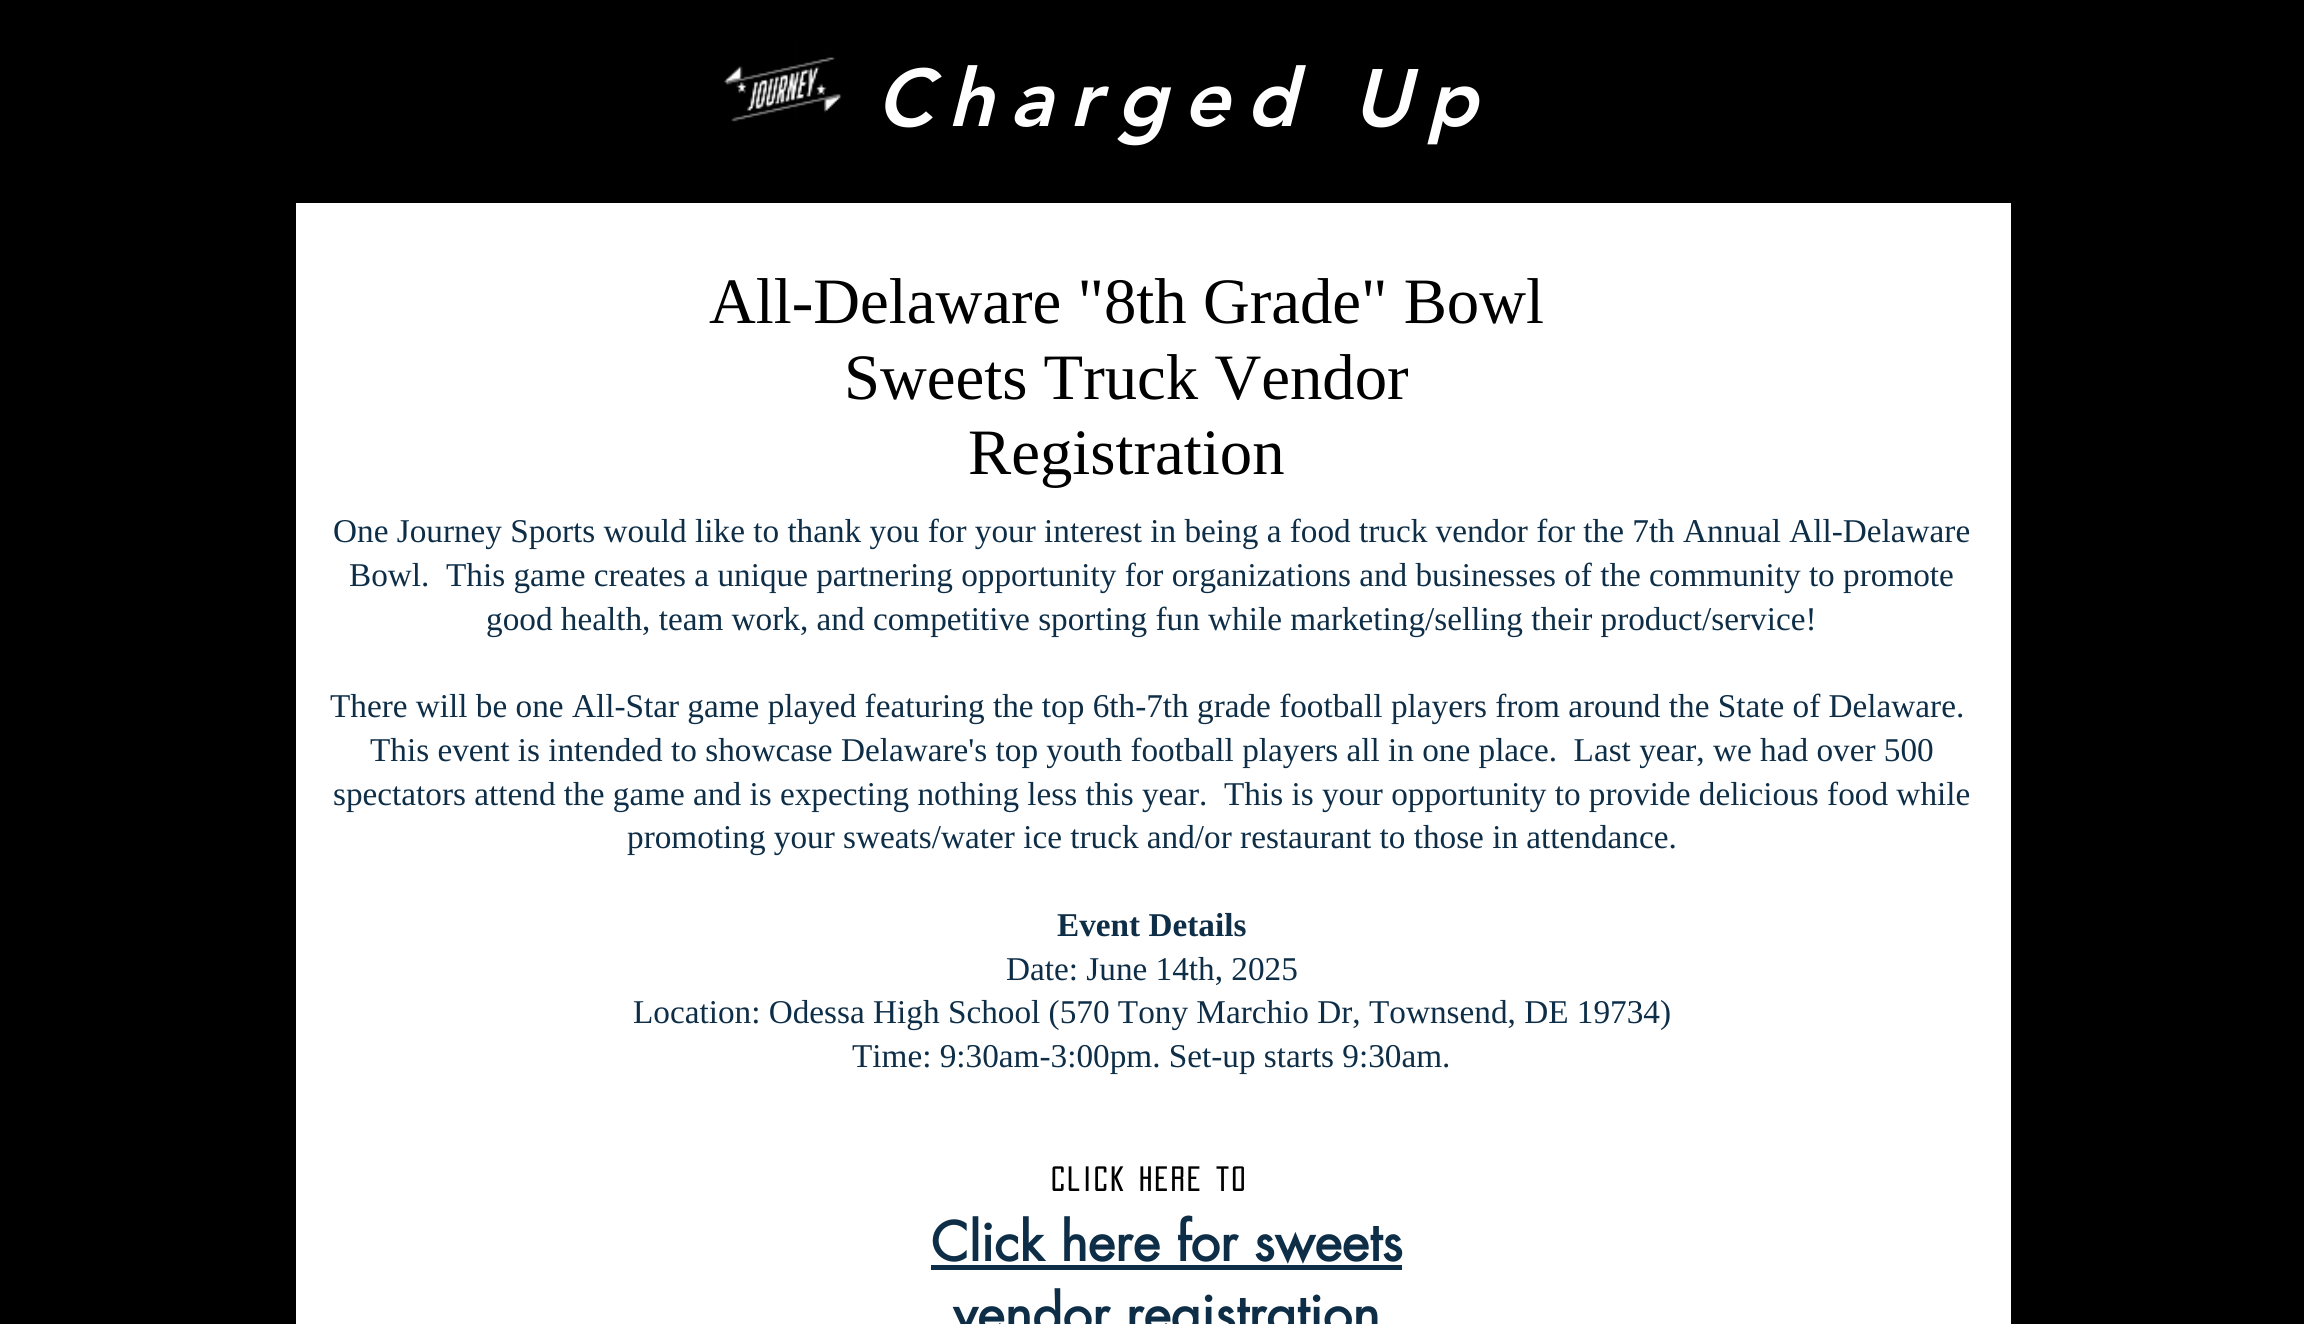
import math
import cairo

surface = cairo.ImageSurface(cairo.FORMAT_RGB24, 2304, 1324)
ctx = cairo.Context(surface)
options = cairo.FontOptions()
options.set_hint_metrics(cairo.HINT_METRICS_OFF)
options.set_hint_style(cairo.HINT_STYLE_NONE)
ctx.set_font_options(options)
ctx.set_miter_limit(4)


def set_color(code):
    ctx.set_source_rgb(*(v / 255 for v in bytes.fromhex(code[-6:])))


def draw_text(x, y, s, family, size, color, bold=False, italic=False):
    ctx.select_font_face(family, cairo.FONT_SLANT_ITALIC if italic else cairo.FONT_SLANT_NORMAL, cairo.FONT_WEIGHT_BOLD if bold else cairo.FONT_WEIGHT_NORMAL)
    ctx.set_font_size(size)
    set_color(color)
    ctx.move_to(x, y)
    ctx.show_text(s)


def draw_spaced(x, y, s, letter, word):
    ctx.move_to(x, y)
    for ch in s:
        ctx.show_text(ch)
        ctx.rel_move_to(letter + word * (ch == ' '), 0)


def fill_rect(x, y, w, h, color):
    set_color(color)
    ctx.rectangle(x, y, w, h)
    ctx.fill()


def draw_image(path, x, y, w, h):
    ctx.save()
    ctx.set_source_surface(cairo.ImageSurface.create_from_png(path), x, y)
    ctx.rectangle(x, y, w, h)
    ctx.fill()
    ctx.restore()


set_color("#000000")
ctx.paint()
draw_image("assets/img1.png", 724, 40, 118, 82)
ctx.select_font_face("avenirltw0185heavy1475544 Black", cairo.FONT_SLANT_ITALIC)
ctx.set_font_size(80.5)
set_color("#ffffff")
draw_spaced(876, 126, "Charged Up", 16.1, 0)
fill_rect(296, 203, 1715, 1121, "#ffffff")
draw_text(709, 323, "All-Delaware \"8th Grade\" Bowl", "Liberation Serif", 64.75, "#000000")
draw_text(844, 399, "Sweets Truck Vendor", "Liberation Serif", 64.75, "#000000")
draw_text(968, 474, "Registration", "Liberation Serif", 64.75, "#000000")
draw_text(333, 542, "One Journey Sports would like to thank you for your interest in being a food truck vendor for the 7th Annual All-Delaware", "Liberation Serif", 33.25, "#0e2e47")
draw_text(349, 586, "Bowl.  This game creates a unique partnering opportunity for organizations and businesses of the community to promote", "Liberation Serif", 33.25, "#0e2e47")
draw_text(486, 630, "good health, team work, and competitive sporting fun while marketing/selling their product/service!", "Liberation Serif", 33.25, "#0e2e47")
draw_text(330, 717, "There will be one All-Star game played featuring the top 6th-7th grade football players from around the State of Delaware.", "Liberation Serif", 33.25, "#0e2e47")
draw_text(370, 761, "This event is intended to showcase Delaware's top youth football players all in one place.  Last year, we had over 500", "Liberation Serif", 33.25, "#0e2e47")
draw_text(333, 805, "spectators attend the game and is expecting nothing less this year.  This is your opportunity to provide delicious food while", "Liberation Serif", 33.25, "#0e2e47")
draw_text(627, 848, "promoting your sweats/water ice truck and/or restaurant to those in attendance.", "Liberation Serif", 33.25, "#0e2e47")
draw_text(1057, 936, "Event Details", "Liberation Serif", 33.25, "#0e2e47", bold=True)
draw_text(1006, 980, "Date: June 14th, 2025", "Liberation Serif", 33.25, "#0e2e47")
draw_text(633, 1023, "Location: Odessa High School (570 Tony Marchio Dr, Townsend, DE 19734)", "Liberation Serif", 33.25, "#0e2e47")
draw_text(852, 1067, "Time: 9:30am-3:00pm. Set-up starts 9:30am.", "Liberation Serif", 33.25, "#0e2e47")
ctx.select_font_face("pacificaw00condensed", cairo.FONT_SLANT_NORMAL, cairo.FONT_WEIGHT_BOLD)
ctx.set_font_size(29.75)
set_color("#000000")
draw_spaced(1051, 1191, "Click here to", 3, 0)
draw_text(931, 1261, "Click here for sweets", "futura", 52.5, "#0e2e47", bold=True)
fill_rect(931, 1265, 471, 5, "#0e2e47")
draw_text(953, 1333, "vendor registration", "futura", 52.5, "#0e2e47", bold=True)
surface.write_to_png("output.png")
